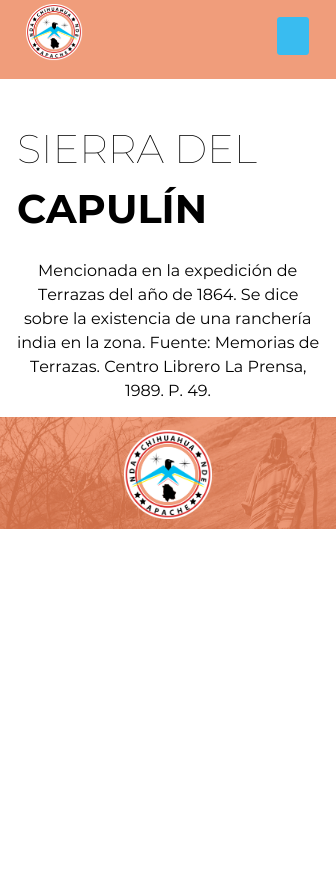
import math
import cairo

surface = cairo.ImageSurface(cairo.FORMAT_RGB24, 336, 884)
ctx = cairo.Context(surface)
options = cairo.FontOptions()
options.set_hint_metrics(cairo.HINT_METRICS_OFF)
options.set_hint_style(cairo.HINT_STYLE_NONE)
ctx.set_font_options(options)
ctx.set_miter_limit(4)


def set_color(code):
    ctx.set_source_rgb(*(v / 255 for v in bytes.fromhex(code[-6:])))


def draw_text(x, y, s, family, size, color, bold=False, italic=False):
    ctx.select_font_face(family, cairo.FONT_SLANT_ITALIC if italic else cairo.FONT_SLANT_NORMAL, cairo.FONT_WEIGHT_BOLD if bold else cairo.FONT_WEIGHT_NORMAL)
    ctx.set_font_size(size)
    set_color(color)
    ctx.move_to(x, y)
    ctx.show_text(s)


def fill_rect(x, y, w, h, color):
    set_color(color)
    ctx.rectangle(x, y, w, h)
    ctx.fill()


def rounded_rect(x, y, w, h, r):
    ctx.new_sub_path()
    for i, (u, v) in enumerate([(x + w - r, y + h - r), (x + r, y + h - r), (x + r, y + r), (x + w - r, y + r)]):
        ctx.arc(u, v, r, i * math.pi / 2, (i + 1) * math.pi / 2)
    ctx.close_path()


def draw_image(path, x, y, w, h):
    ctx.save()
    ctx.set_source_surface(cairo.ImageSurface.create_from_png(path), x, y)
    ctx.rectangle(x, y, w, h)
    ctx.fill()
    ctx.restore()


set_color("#ffffff")
ctx.paint()
fill_rect(0, 0, 336, 79, "#f09d7b")
draw_image("assets/img1.png", 26, 4, 57, 57)
set_color("#39bcf0")
rounded_rect(277, 17, 32, 38, 3)
ctx.fill()
draw_text(17, 163, "SIERRA DEL", "Montserrat Thin", 40, "#000000")
draw_text(17, 223, "CAPULÍN", "Montserrat", 40, "#000000", bold=True)
draw_text(38, 276, "Mencionada en la expedición de", "Montserrat", 16, "#000000")
draw_text(38, 300, "Terrazas del año de 1864. Se dice", "Montserrat", 16, "#000000")
draw_text(24, 324, "sobre la existencia de una ranchería", "Montserrat", 16, "#000000")
draw_text(17, 348, "india en la zona. Fuente: Memorias de", "Montserrat", 16, "#000000")
draw_text(30, 372, "Terrazas. Centro Librero La Prensa,", "Montserrat", 16, "#000000")
draw_text(125, 396, "1989. P. 49.", "Montserrat", 16, "#000000")
draw_image("assets/img2.png", 0, 417, 336, 112)
draw_image("assets/img3.png", 124, 430, 88, 89)
surface.write_to_png("output.png")
